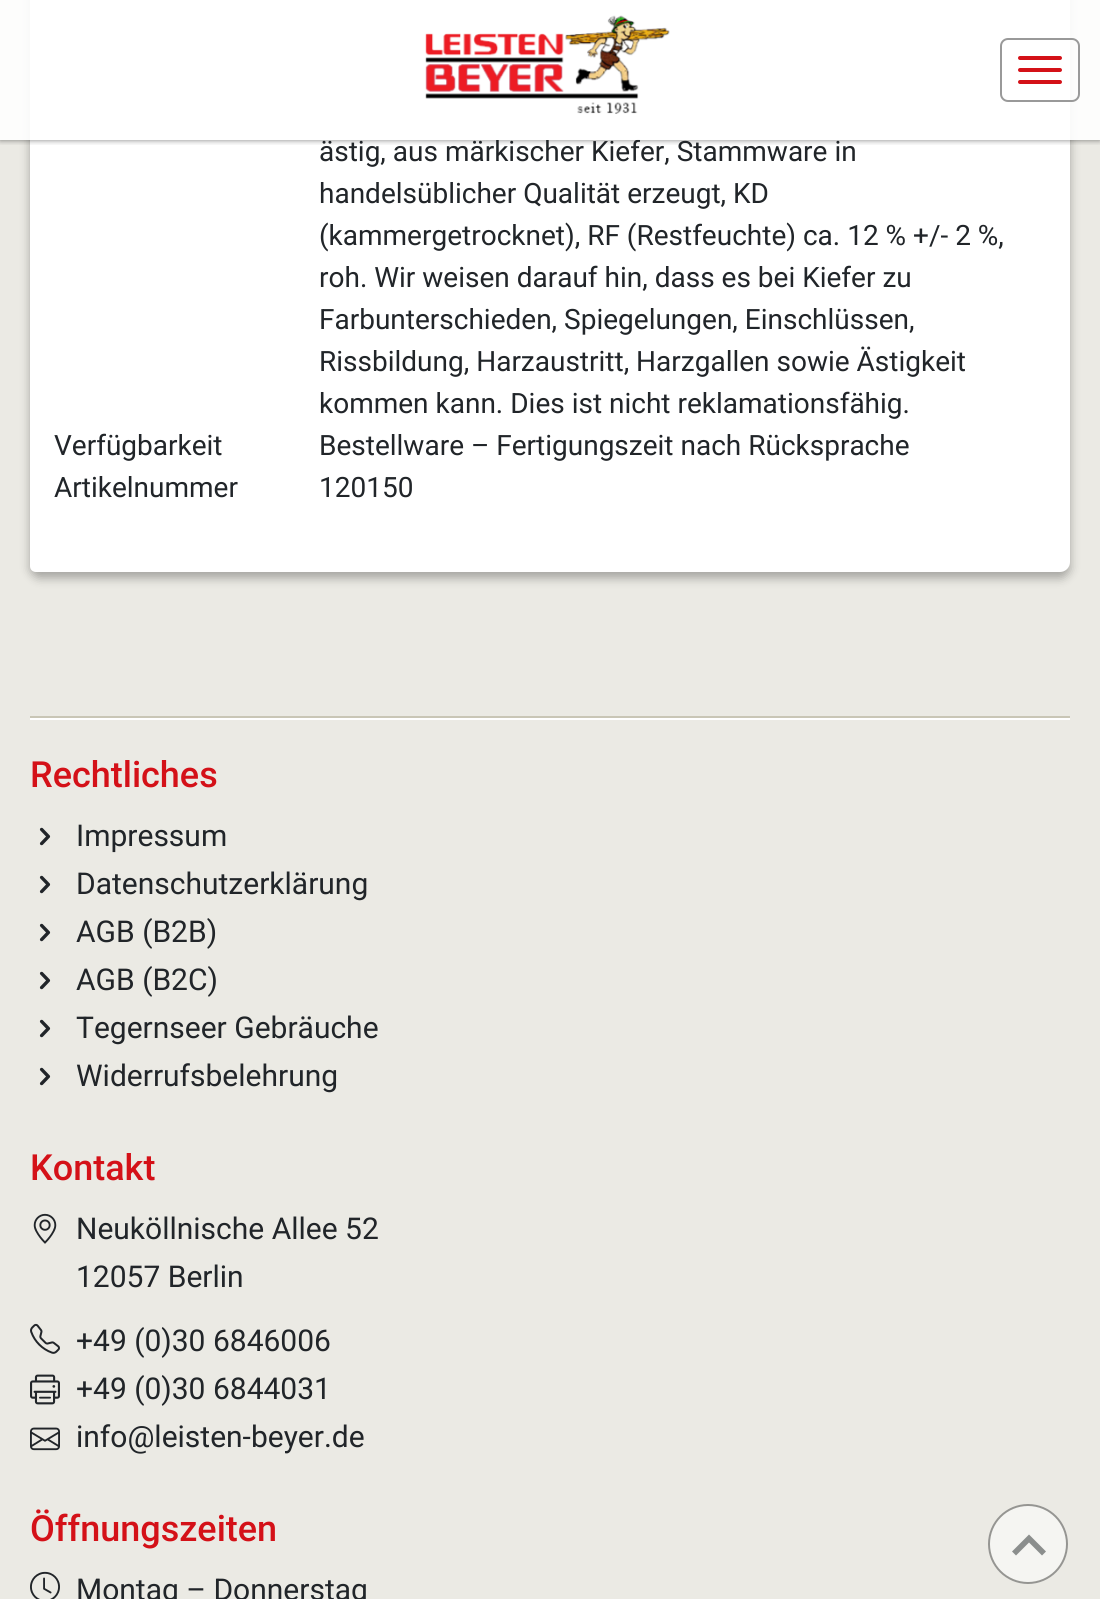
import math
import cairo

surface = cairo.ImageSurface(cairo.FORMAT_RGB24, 1100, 1599)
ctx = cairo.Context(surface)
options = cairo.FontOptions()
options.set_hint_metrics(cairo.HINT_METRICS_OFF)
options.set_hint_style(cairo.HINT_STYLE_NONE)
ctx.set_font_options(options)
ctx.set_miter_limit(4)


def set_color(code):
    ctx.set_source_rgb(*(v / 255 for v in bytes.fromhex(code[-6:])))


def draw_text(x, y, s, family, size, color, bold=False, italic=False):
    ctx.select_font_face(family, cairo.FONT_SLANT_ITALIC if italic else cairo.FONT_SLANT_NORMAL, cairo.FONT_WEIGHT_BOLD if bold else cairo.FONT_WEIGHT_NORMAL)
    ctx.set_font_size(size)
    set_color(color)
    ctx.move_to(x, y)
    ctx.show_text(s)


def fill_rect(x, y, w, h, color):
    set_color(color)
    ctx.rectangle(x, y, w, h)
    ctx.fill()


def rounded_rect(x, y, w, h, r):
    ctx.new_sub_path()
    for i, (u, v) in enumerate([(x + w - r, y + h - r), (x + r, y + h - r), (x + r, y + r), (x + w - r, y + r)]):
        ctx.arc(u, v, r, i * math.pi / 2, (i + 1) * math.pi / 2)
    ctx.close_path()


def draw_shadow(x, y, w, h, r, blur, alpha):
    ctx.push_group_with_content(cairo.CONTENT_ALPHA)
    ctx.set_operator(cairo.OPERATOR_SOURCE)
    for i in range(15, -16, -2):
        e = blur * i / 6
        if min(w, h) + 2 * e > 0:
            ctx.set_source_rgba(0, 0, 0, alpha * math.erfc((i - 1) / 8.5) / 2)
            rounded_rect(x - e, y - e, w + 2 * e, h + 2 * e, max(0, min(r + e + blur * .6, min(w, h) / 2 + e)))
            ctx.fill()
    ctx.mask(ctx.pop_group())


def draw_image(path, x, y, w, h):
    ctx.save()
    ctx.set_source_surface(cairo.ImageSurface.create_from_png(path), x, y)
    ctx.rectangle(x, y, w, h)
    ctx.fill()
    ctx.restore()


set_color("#ebeae4")
ctx.paint()
set_color("#000000")
draw_shadow(30, -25, 1040, 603, 10, 5, 0.3)
set_color("#ffffff")
ctx.new_path()
ctx.move_to(40, -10)
ctx.line_to(1064, -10)
ctx.curve_to(1067.5, -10, 1070, -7.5, 1070, -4)
ctx.line_to(1070, 562)
ctx.curve_to(1070, 567.5, 1065.5, 572, 1060, 572)
ctx.line_to(36, 572)
ctx.curve_to(32.5, 572, 30, 569.5, 30, 566)
ctx.line_to(30, 0)
ctx.curve_to(30, -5.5, 34.5, -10, 40, -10)
ctx.close_path()
ctx.fill()
ctx.save()
ctx.rectangle(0, 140, 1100, 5)
ctx.clip()
set_color("#000000")
draw_shadow(0, 0, 1100, 140, 0, 3, 0.5)
ctx.restore()
draw_text(319, 161, "ästig, aus märkischer Kiefer, Stammware in", "Roboto", 28, "#212529")
ctx.set_source_rgba(1, 1, 1, 0.9)
ctx.rectangle(0, 0, 1100, 140)
ctx.fill()
draw_image("assets/img1.png", 425, 14, 246, 105)
rounded_rect(1001, 39, 78, 62, 7)
set_color("#999999")
ctx.stroke()
set_color("#d41118")
rounded_rect(1018, 56, 44, 4, 2)
ctx.fill()
rounded_rect(1018, 68, 44, 4, 2)
ctx.fill()
rounded_rect(1018, 80, 44, 4, 2)
ctx.fill()
draw_text(319, 203, "handelsüblicher Qualität erzeugt, KD", "Roboto", 28, "#212529")
draw_text(319, 245, "(kammergetrocknet), RF (Restfeuchte) ca. 12 % +/- 2 %,", "Roboto", 28, "#212529")
draw_text(319, 287, "roh. Wir weisen darauf hin, dass es bei Kiefer zu", "Roboto", 28, "#212529")
draw_text(319, 329, "Farbunterschieden, Spiegelungen, Einschlüssen,", "Roboto", 28, "#212529")
draw_text(319, 371, "Rissbildung, Harzaustritt, Harzgallen sowie Ästigkeit", "Roboto", 28, "#212529")
draw_text(319, 413, "kommen kann. Dies ist nicht reklamationsfähig.", "Roboto", 28, "#212529")
draw_text(54, 455, "Verfügbarkeit", "Roboto", 28, "#212529")
draw_text(319, 455, "Bestellware – Fertigungszeit nach Rücksprache", "Roboto", 28, "#212529")
draw_text(54, 497, "Artikelnummer", "Roboto", 28, "#212529")
draw_text(319, 497, "120150", "Roboto", 28, "#212529")
fill_rect(30, 716, 1040, 2, "#c9c6b6")
fill_rect(30, 718, 1040, 2, "#ffffff")
draw_text(30, 787, "Rechtliches", "Roboto Medium", 36, "#d41118")
draw_image("assets/img2.png", 39, 827, 12, 19)
draw_text(76, 846, "Impressum", "Roboto", 30, "#212529")
draw_image("assets/img2.png", 39, 875, 12, 19)
draw_text(76, 894, "Datenschutzerklärung", "Roboto", 30, "#212529")
draw_image("assets/img2.png", 39, 923, 12, 19)
draw_text(76, 942, "AGB (B2B)", "Roboto", 30, "#212529")
draw_image("assets/img2.png", 39, 971, 12, 19)
draw_text(76, 990, "AGB (B2C)", "Roboto", 30, "#212529")
draw_image("assets/img2.png", 39, 1019, 12, 19)
draw_text(76, 1038, "Tegernseer Gebräuche", "Roboto", 30, "#212529")
draw_image("assets/img2.png", 39, 1067, 12, 19)
draw_text(76, 1086, "Widerrufsbelehrung", "Roboto", 30, "#212529")
draw_text(30, 1180, "Kontakt", "Roboto Medium", 36, "#d41118")
draw_image("assets/img3.png", 33, 1213, 24, 31)
draw_text(76, 1239, "Neuköllnische Allee 52", "Roboto", 30, "#212529")
draw_text(76, 1287, "12057 Berlin", "Roboto", 30, "#212529")
draw_image("assets/img4.png", 30, 1323, 30, 31)
draw_text(76, 1351, "+49 (0)30 6846006", "Roboto", 30, "#212529")
draw_image("assets/img5.png", 30, 1374, 30, 31)
draw_text(76, 1399, "+49 (0)30 6844031", "Roboto", 30, "#212529")
draw_image("assets/img6.png", 30, 1427, 30, 24)
draw_text(76, 1447, "info@leisten-beyer.de", "Roboto", 30, "#212529")
draw_text(30, 1541, "Öffnungszeiten", "Roboto Medium", 36, "#d41118")
draw_image("assets/img7.png", 30, 1571, 30, 28)
draw_text(76, 1600, "Montag – Donnerstag", "Roboto", 30, "#212529")
set_color("#f5f5f2")
ctx.new_path()
ctx.arc(1028, 1544, 40, 0, 2 * math.pi)
ctx.fill()
set_color("#8b8e8d")
ctx.new_path()
ctx.move_to(1016, 1555.5)
ctx.line_to(1029, 1542.5)
ctx.line_to(1042, 1555.5)
ctx.line_to(1046, 1551.5)
ctx.line_to(1029, 1534.5)
ctx.line_to(1012, 1551.5)
ctx.close_path()
ctx.fill()
ctx.arc(1028, 1544, 39, 0, 2 * math.pi)
ctx.set_source_rgba(0.463, 0.459, 0.447, 0.75)
ctx.stroke()
surface.write_to_png("output.png")
